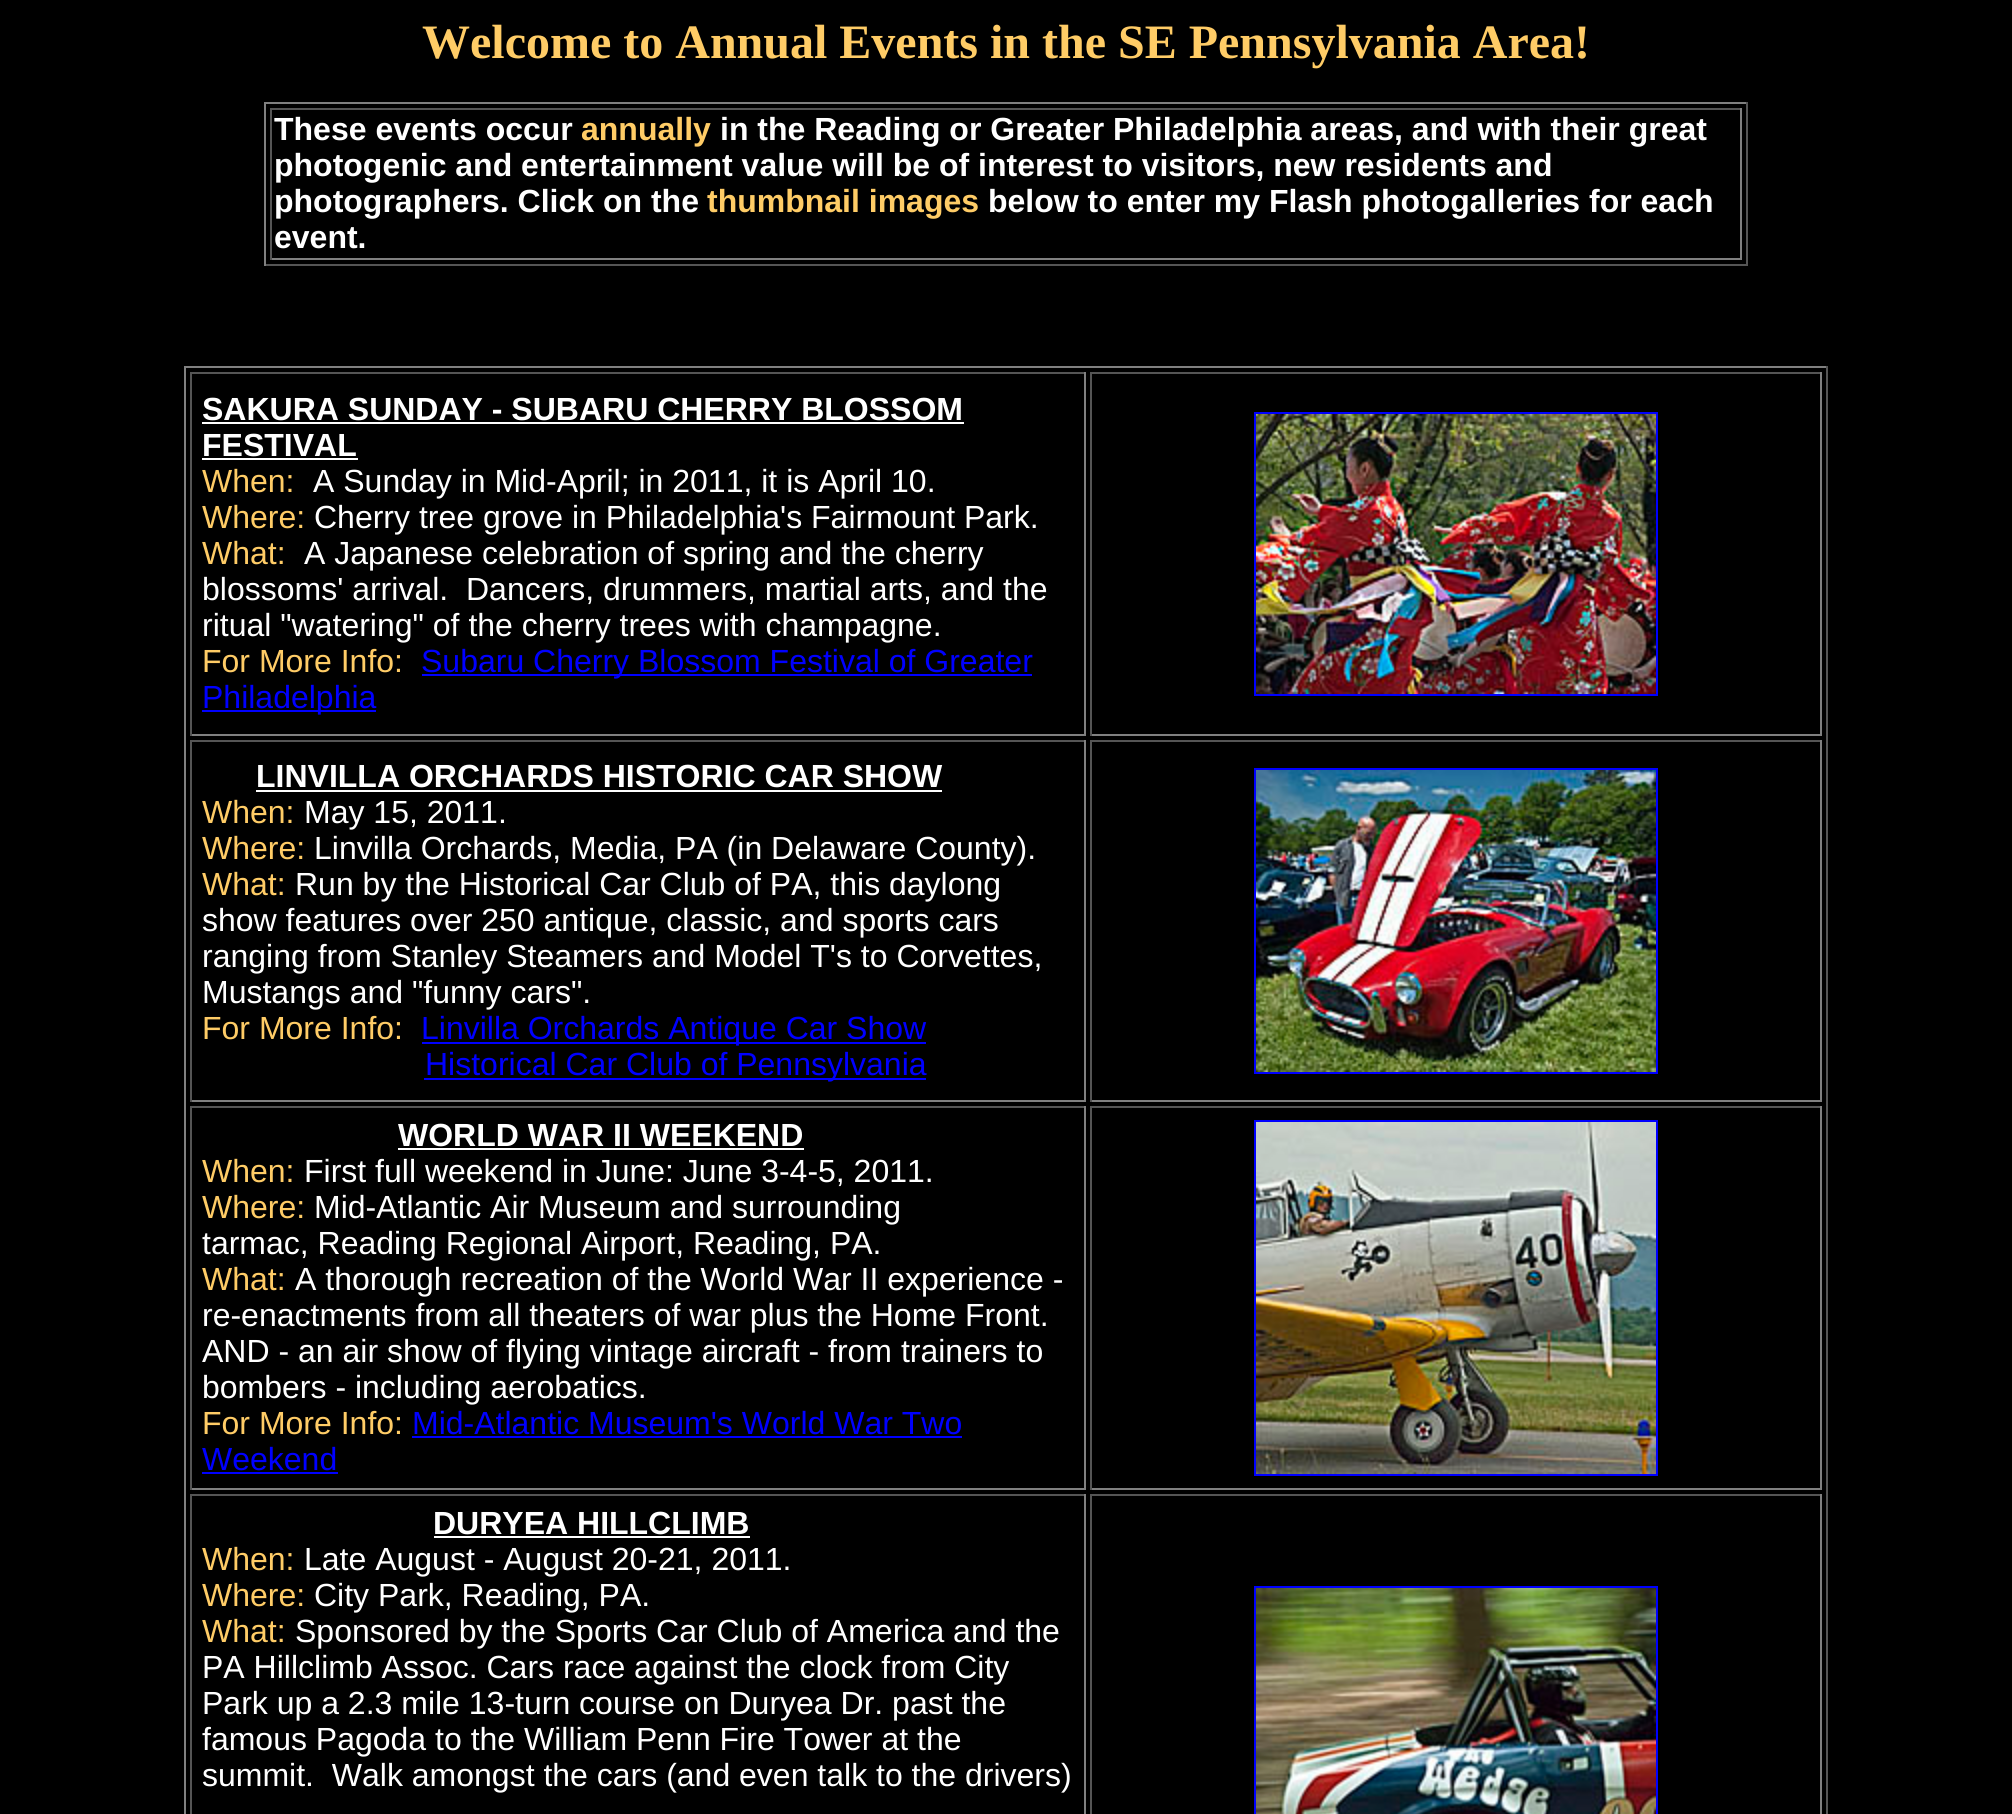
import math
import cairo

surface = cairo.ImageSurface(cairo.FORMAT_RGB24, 2012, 1814)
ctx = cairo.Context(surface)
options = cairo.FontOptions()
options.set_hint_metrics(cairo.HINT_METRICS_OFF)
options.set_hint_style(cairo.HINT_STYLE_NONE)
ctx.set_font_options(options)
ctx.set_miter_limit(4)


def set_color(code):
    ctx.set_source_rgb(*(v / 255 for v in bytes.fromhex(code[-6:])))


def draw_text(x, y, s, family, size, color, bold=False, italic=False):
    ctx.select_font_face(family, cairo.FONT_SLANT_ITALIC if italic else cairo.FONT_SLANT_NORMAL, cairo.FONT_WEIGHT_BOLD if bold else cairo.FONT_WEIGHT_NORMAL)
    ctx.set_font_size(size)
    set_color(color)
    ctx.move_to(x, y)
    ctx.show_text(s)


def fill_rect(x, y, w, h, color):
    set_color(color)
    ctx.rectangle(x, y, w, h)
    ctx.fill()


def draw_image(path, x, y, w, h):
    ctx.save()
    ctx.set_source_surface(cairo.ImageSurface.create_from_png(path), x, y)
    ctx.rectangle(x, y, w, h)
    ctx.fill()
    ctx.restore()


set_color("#000000")
ctx.paint()
draw_text(422, 58, "Welcome to Annual Events in the SE Pennsylvania Area!", "Liberation Serif", 48, "#ffcc66", bold=True)
fill_rect(264, 102, 1484, 2, "#808080")
fill_rect(1746, 102, 2, 164, "#555555")
fill_rect(264, 264, 1484, 2, "#555555")
fill_rect(264, 102, 2, 164, "#808080")
fill_rect(270, 108, 1472, 2, "#555555")
fill_rect(1740, 108, 2, 152, "#808080")
fill_rect(270, 258, 1472, 2, "#808080")
fill_rect(270, 108, 2, 152, "#555555")
draw_text(274, 140, "These events occur", "Liberation Sans", 32, "#ffffff", bold=True)
draw_text(581, 140, "annually", "Liberation Sans", 32, "#ffcc66", bold=True)
draw_text(720, 140, "in the Reading or Greater Philadelphia areas, and with their great", "Liberation Sans", 32, "#ffffff", bold=True)
draw_text(274, 176, "photogenic and entertainment value will be of interest to visitors, new residents and", "Liberation Sans", 32, "#ffffff", bold=True)
draw_text(274, 212, "photographers. Click on the", "Liberation Sans", 32, "#ffffff", bold=True)
draw_text(707, 212, "thumbnail images", "Liberation Sans", 32, "#ffcc66", bold=True)
draw_text(988, 212, "below to enter my Flash photogalleries for each", "Liberation Sans", 32, "#ffffff", bold=True)
draw_text(274, 248, "event.", "Liberation Sans", 32, "#ffffff", bold=True)
fill_rect(184, 366, 1644, 2, "#808080")
fill_rect(1826, 366, 2, 1448, "#555555")
fill_rect(184, 366, 2, 1448, "#808080")
fill_rect(190, 372, 896, 2, "#555555")
fill_rect(1084, 372, 2, 364, "#808080")
fill_rect(190, 734, 896, 2, "#808080")
fill_rect(190, 372, 2, 364, "#555555")
draw_text(202, 420, "SAKURA SUNDAY - SUBARU CHERRY BLOSSOM", "Liberation Sans", 32, "#ffffff", bold=True)
fill_rect(202, 422, 762, 2, "#ffffff")
draw_text(202, 456, "FESTIVAL", "Liberation Sans", 32, "#ffffff", bold=True)
fill_rect(202, 458, 156, 2, "#ffffff")
draw_text(202, 492, "When:", "Liberation Sans", 32, "#ffcc66")
draw_text(313, 492, "A Sunday in Mid-April; in 2011, it is April 10.", "Liberation Sans", 32, "#ffffff")
draw_text(202, 528, "Where:", "Liberation Sans", 32, "#ffcc66")
draw_text(314, 528, "Cherry tree grove in Philadelphia's Fairmount Park.", "Liberation Sans", 32, "#ffffff")
draw_text(202, 564, "What:", "Liberation Sans", 32, "#ffcc66")
draw_text(304, 564, "A Japanese celebration of spring and the cherry", "Liberation Sans", 32, "#ffffff")
draw_text(202, 600, "blossoms' arrival.", "Liberation Sans", 32, "#ffffff")
draw_text(466, 600, "Dancers, drummers, martial arts, and the", "Liberation Sans", 32, "#ffffff")
draw_text(202, 636, "ritual \"watering\" of the cherry trees with champagne.", "Liberation Sans", 32, "#ffffff")
draw_text(202, 672, "For More Info:", "Liberation Sans", 32, "#ffcc66")
fill_rect(422, 674, 610, 2, "#0000ff")
draw_text(421, 672, "Subaru Cherry Blossom Festival of Greater", "Liberation Sans", 32, "#0000ff")
fill_rect(202, 710, 174, 2, "#0000ff")
draw_text(202, 708, "Philadelphia", "Liberation Sans", 32, "#0000ff")
fill_rect(1090, 372, 732, 2, "#555555")
fill_rect(1820, 372, 2, 364, "#808080")
fill_rect(1090, 734, 732, 2, "#808080")
fill_rect(1090, 372, 2, 364, "#555555")
ctx.rectangle(1255, 413, 402, 282)
set_color("#0000ff")
ctx.stroke()
draw_image("assets/img1.png", 1256, 414, 400, 280)
fill_rect(190, 740, 896, 2, "#555555")
fill_rect(1084, 740, 2, 362, "#808080")
fill_rect(190, 1100, 896, 2, "#808080")
fill_rect(190, 740, 2, 362, "#555555")
draw_text(256, 787, "LINVILLA ORCHARDS HISTORIC CAR SHOW", "Liberation Sans", 32, "#ffffff", bold=True)
fill_rect(256, 790, 686, 2, "#ffffff")
draw_text(202, 823, "When:", "Liberation Sans", 32, "#ffcc66")
draw_text(304, 823, "May 15, 2011.", "Liberation Sans", 32, "#ffffff")
draw_text(202, 859, "Where:", "Liberation Sans", 32, "#ffcc66")
draw_text(314, 859, "Linvilla Orchards, Media, PA (in Delaware County).", "Liberation Sans", 32, "#ffffff")
draw_text(202, 895, "What:", "Liberation Sans", 32, "#ffcc66")
draw_text(295, 895, "Run by the Historical Car Club of PA, this daylong", "Liberation Sans", 32, "#ffffff")
draw_text(202, 931, "show features over 250 antique, classic, and sports cars", "Liberation Sans", 32, "#ffffff")
draw_text(202, 967, "ranging from Stanley Steamers and Model T's to Corvettes,", "Liberation Sans", 32, "#ffffff")
draw_text(202, 1003, "Mustangs and \"funny cars\".", "Liberation Sans", 32, "#ffffff")
draw_text(202, 1039, "For More Info:", "Liberation Sans", 32, "#ffcc66")
fill_rect(422, 1042, 504, 2, "#0000ff")
draw_text(421, 1039, "Linvilla Orchards Antique Car Show", "Liberation Sans", 32, "#0000ff")
fill_rect(424, 1078, 502, 2, "#0000ff")
draw_text(425, 1075, "Historical Car Club of Pennsylvania", "Liberation Sans", 32, "#0000ff")
fill_rect(1090, 740, 732, 2, "#555555")
fill_rect(1820, 740, 2, 362, "#808080")
fill_rect(1090, 1100, 732, 2, "#808080")
fill_rect(1090, 740, 2, 362, "#555555")
ctx.rectangle(1255, 769, 402, 304)
set_color("#0000ff")
ctx.stroke()
draw_image("assets/img2.png", 1256, 770, 400, 302)
fill_rect(190, 1106, 896, 2, "#555555")
fill_rect(1084, 1106, 2, 384, "#808080")
fill_rect(190, 1488, 896, 2, "#808080")
fill_rect(190, 1106, 2, 384, "#555555")
draw_text(398, 1146, "WORLD WAR II WEEKEND", "Liberation Sans", 32, "#ffffff", bold=True)
fill_rect(398, 1148, 406, 2, "#ffffff")
draw_text(202, 1182, "When:", "Liberation Sans", 32, "#ffcc66")
draw_text(304, 1182, "First full weekend in June: June 3-4-5, 2011.", "Liberation Sans", 32, "#ffffff")
draw_text(202, 1218, "Where:", "Liberation Sans", 32, "#ffcc66")
draw_text(314, 1218, "Mid-Atlantic Air Museum and surrounding", "Liberation Sans", 32, "#ffffff")
draw_text(202, 1254, "tarmac, Reading Regional Airport, Reading, PA.", "Liberation Sans", 32, "#ffffff")
draw_text(202, 1290, "What:", "Liberation Sans", 32, "#ffcc66")
draw_text(295, 1290, "A thorough recreation of the World War II experience -", "Liberation Sans", 32, "#ffffff")
draw_text(202, 1326, "re-enactments from all theaters of war plus the Home Front.", "Liberation Sans", 32, "#ffffff")
draw_text(202, 1362, "AND - an air show of flying vintage aircraft - from trainers to", "Liberation Sans", 32, "#ffffff")
draw_text(202, 1398, "bombers - including aerobatics.", "Liberation Sans", 32, "#ffffff")
draw_text(202, 1434, "For More Info:", "Liberation Sans", 32, "#ffcc66")
draw_text(412, 1434, "Mid-Atlantic Museum's World War Two", "Liberation Sans", 32, "#0000ff")
fill_rect(412, 1436, 550, 2, "#0000ff")
draw_text(202, 1470, "Weekend", "Liberation Sans", 32, "#0000ff")
fill_rect(202, 1472, 136, 2, "#0000ff")
fill_rect(1090, 1106, 732, 2, "#555555")
fill_rect(1820, 1106, 2, 384, "#808080")
fill_rect(1090, 1488, 732, 2, "#808080")
fill_rect(1090, 1106, 2, 384, "#555555")
ctx.rectangle(1255, 1121, 402, 354)
set_color("#0000ff")
ctx.stroke()
draw_image("assets/img3.png", 1256, 1122, 400, 352)
fill_rect(190, 1494, 896, 2, "#555555")
fill_rect(1084, 1494, 2, 320, "#808080")
fill_rect(190, 1494, 2, 320, "#555555")
draw_text(433, 1534, "DURYEA HILLCLIMB", "Liberation Sans", 32, "#ffffff", bold=True)
fill_rect(434, 1536, 316, 2, "#ffffff")
draw_text(202, 1570, "When:", "Liberation Sans", 32, "#ffcc66")
draw_text(304, 1570, "Late August - August 20-21, 2011.", "Liberation Sans", 32, "#ffffff")
draw_text(202, 1606, "Where:", "Liberation Sans", 32, "#ffcc66")
draw_text(314, 1606, "City Park, Reading, PA.", "Liberation Sans", 32, "#ffffff")
draw_text(202, 1642, "What:", "Liberation Sans", 32, "#ffcc66")
draw_text(295, 1642, "Sponsored by the Sports Car Club of America and the", "Liberation Sans", 32, "#ffffff")
draw_text(202, 1678, "PA Hillclimb Assoc. Cars race against the clock from City", "Liberation Sans", 32, "#ffffff")
draw_text(202, 1714, "Park up a 2.3 mile 13-turn course on Duryea Dr. past the", "Liberation Sans", 32, "#ffffff")
draw_text(202, 1750, "famous Pagoda to the William Penn Fire Tower at the", "Liberation Sans", 32, "#ffffff")
draw_text(202, 1786, "summit.  Walk amongst the cars (and even talk to the drivers)", "Liberation Sans", 32, "#ffffff")
fill_rect(1090, 1494, 732, 2, "#555555")
fill_rect(1820, 1494, 2, 320, "#808080")
fill_rect(1090, 1494, 2, 320, "#555555")
ctx.rectangle(1255, 1587, 402, 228)
set_color("#0000ff")
ctx.stroke()
draw_image("assets/img4.png", 1256, 1588, 400, 226)
surface.write_to_png("output.png")
